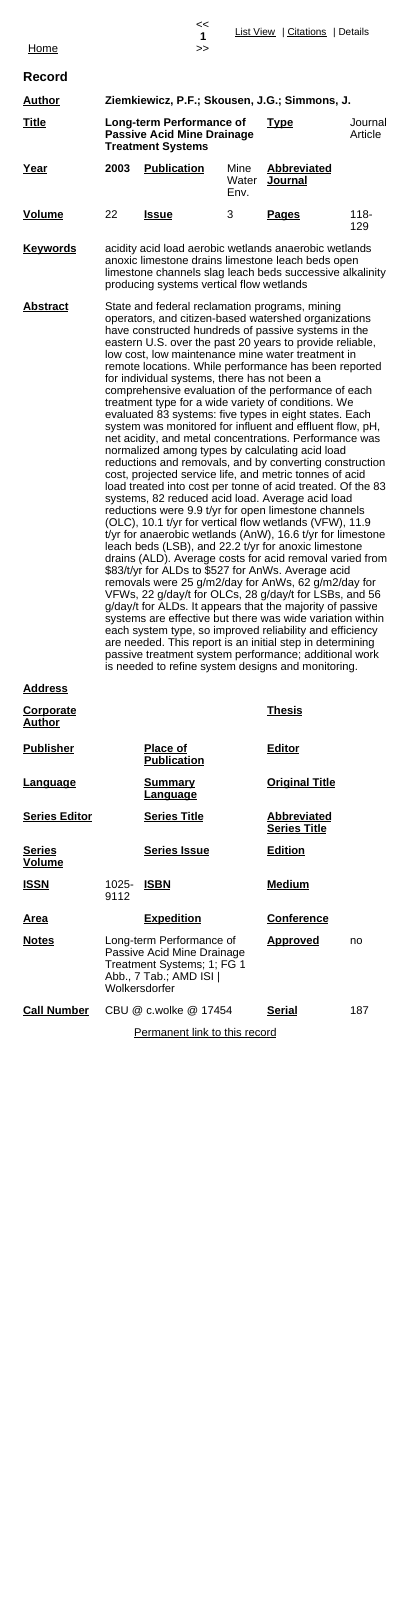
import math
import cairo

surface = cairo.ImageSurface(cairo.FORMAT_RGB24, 410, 1602)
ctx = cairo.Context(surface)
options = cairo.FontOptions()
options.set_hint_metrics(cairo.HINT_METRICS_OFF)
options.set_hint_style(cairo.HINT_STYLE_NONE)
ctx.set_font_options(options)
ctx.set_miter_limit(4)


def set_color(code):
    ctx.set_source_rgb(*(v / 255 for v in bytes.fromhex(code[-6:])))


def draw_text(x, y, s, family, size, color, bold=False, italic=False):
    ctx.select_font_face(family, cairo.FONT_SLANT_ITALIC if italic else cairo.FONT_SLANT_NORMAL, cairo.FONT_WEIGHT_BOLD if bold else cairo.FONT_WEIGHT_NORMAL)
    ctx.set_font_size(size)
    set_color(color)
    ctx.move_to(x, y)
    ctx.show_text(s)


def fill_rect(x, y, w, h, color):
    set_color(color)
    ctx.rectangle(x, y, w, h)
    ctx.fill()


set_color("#ffffff")
ctx.paint()
draw_text(196, 28, "<<", "Liberation Sans", 11.2, "#000000")
draw_text(200, 40, "1", "Liberation Sans", 11.2, "#000000", bold=True)
draw_text(196, 52, ">>", "Liberation Sans", 11.2, "#000000")
draw_text(235, 35, "List View", "Liberation Sans", 10, "#000000")
fill_rect(235, 36, 41, 1, "#000000")
draw_text(282, 35, "| Citations", "Liberation Sans", 10, "#000000")
fill_rect(287, 36, 40, 1, "#000000")
draw_text(333, 35, "| Details", "Liberation Sans", 10, "#000000")
draw_text(28, 52, "Home", "Liberation Sans", 11.2, "#000000")
fill_rect(28, 53, 30, 1, "#000000")
draw_text(23, 81, "Record", "Liberation Sans", 13, "#000000", bold=True)
draw_text(23, 104, "Author", "Liberation Sans", 11.2, "#000000", bold=True)
fill_rect(23, 105, 37, 1, "#000000")
draw_text(105, 104, "Ziemkiewicz, P.F.; Skousen, J.G.; Simmons, J.", "Liberation Sans", 11.2, "#000000", bold=True)
draw_text(23, 126, "Title", "Liberation Sans", 11.2, "#000000", bold=True)
fill_rect(23, 127, 23, 1, "#000000")
draw_text(105, 126, "Long-term Performance of", "Liberation Sans", 11.2, "#000000", bold=True)
draw_text(105, 138, "Passive Acid Mine Drainage", "Liberation Sans", 11.2, "#000000", bold=True)
draw_text(105, 150, "Treatment Systems", "Liberation Sans", 11.2, "#000000", bold=True)
fill_rect(267, 127, 26, 1, "#000000")
draw_text(267, 126, "Type", "Liberation Sans", 11.2, "#000000", bold=True)
draw_text(350, 126, "Journal", "Liberation Sans", 11.2, "#000000")
draw_text(350, 138, "Article", "Liberation Sans", 11.2, "#000000")
draw_text(23, 172, "Year", "Liberation Sans", 11.2, "#000000", bold=True)
fill_rect(23, 173, 24, 1, "#000000")
draw_text(105, 172, "2003", "Liberation Sans", 11.2, "#000000", bold=True)
draw_text(144, 172, "Publication", "Liberation Sans", 11.2, "#000000", bold=True)
fill_rect(144, 173, 60, 1, "#000000")
draw_text(227, 172, "Mine", "Liberation Sans", 11.2, "#000000")
draw_text(227, 184, "Water", "Liberation Sans", 11.2, "#000000")
draw_text(227, 196, "Env.", "Liberation Sans", 11.2, "#000000")
draw_text(267, 172, "Abbreviated", "Liberation Sans", 11.2, "#000000", bold=True)
fill_rect(267, 173, 64, 1, "#000000")
draw_text(267, 184, "Journal", "Liberation Sans", 11.2, "#000000", bold=True)
fill_rect(267, 185, 40, 1, "#000000")
draw_text(23, 218, "Volume", "Liberation Sans", 11.2, "#000000", bold=True)
fill_rect(23, 219, 40, 1, "#000000")
draw_text(105, 218, "22", "Liberation Sans", 11.2, "#000000")
draw_text(144, 218, "Issue", "Liberation Sans", 11.2, "#000000", bold=True)
fill_rect(144, 219, 28, 1, "#000000")
draw_text(227, 218, "3", "Liberation Sans", 11.2, "#000000")
fill_rect(267, 219, 33, 1, "#000000")
draw_text(267, 218, "Pages", "Liberation Sans", 11.2, "#000000", bold=True)
draw_text(350, 218, "118-", "Liberation Sans", 11.2, "#000000")
draw_text(350, 230, "129", "Liberation Sans", 11.2, "#000000")
fill_rect(23, 253, 53, 1, "#000000")
draw_text(23, 252, "Keywords", "Liberation Sans", 11.2, "#000000", bold=True)
draw_text(105, 252, "acidity acid load aerobic wetlands anaerobic wetlands", "Liberation Sans", 11.2, "#000000")
draw_text(105, 264, "anoxic limestone drains limestone leach beds open", "Liberation Sans", 11.2, "#000000")
draw_text(105, 276, "limestone channels slag leach beds successive alkalinity", "Liberation Sans", 11.2, "#000000")
draw_text(105, 288, "producing systems vertical flow wetlands", "Liberation Sans", 11.2, "#000000")
draw_text(23, 310, "Abstract", "Liberation Sans", 11.2, "#000000", bold=True)
fill_rect(23, 311, 45, 1, "#000000")
draw_text(105, 310, "State and federal reclamation programs, mining", "Liberation Sans", 11.2, "#000000")
draw_text(105, 322, "operators, and citizen-based watershed organizations", "Liberation Sans", 11.2, "#000000")
draw_text(105, 334, "have constructed hundreds of passive systems in the", "Liberation Sans", 11.2, "#000000")
draw_text(105, 346, "eastern U.S. over the past 20 years to provide reliable,", "Liberation Sans", 11.2, "#000000")
draw_text(105, 358, "low cost, low maintenance mine water treatment in", "Liberation Sans", 11.2, "#000000")
draw_text(105, 370, "remote locations. While performance has been reported", "Liberation Sans", 11.2, "#000000")
draw_text(105, 382, "for individual systems, there has not been a", "Liberation Sans", 11.2, "#000000")
draw_text(105, 394, "comprehensive evaluation of the performance of each", "Liberation Sans", 11.2, "#000000")
draw_text(105, 406, "treatment type for a wide variety of conditions. We", "Liberation Sans", 11.2, "#000000")
draw_text(105, 418, "evaluated 83 systems: five types in eight states. Each", "Liberation Sans", 11.2, "#000000")
draw_text(105, 430, "system was monitored for influent and effluent flow, pH,", "Liberation Sans", 11.2, "#000000")
draw_text(105, 442, "net acidity, and metal concentrations. Performance was", "Liberation Sans", 11.2, "#000000")
draw_text(105, 454, "normalized among types by calculating acid load", "Liberation Sans", 11.2, "#000000")
draw_text(105, 466, "reductions and removals, and by converting construction", "Liberation Sans", 11.2, "#000000")
draw_text(105, 478, "cost, projected service life, and metric tonnes of acid", "Liberation Sans", 11.2, "#000000")
draw_text(105, 490, "load treated into cost per tonne of acid treated. Of the 83", "Liberation Sans", 11.2, "#000000")
draw_text(105, 502, "systems, 82 reduced acid load. Average acid load", "Liberation Sans", 11.2, "#000000")
draw_text(105, 514, "reductions were 9.9 t/yr for open limestone channels", "Liberation Sans", 11.2, "#000000")
draw_text(105, 526, "(OLC), 10.1 t/yr for vertical flow wetlands (VFW), 11.9", "Liberation Sans", 11.2, "#000000")
draw_text(105, 538, "t/yr for anaerobic wetlands (AnW), 16.6 t/yr for limestone", "Liberation Sans", 11.2, "#000000")
draw_text(105, 550, "leach beds (LSB), and 22.2 t/yr for anoxic limestone", "Liberation Sans", 11.2, "#000000")
draw_text(105, 562, "drains (ALD). Average costs for acid removal varied from", "Liberation Sans", 11.2, "#000000")
draw_text(105, 574, "$83/t/yr for ALDs to $527 for AnWs. Average acid", "Liberation Sans", 11.2, "#000000")
draw_text(105, 586, "removals were 25 g/m2/day for AnWs, 62 g/m2/day for", "Liberation Sans", 11.2, "#000000")
draw_text(105, 598, "VFWs, 22 g/day/t for OLCs, 28 g/day/t for LSBs, and 56", "Liberation Sans", 11.2, "#000000")
draw_text(105, 610, "g/day/t for ALDs. It appears that the majority of passive", "Liberation Sans", 11.2, "#000000")
draw_text(105, 622, "systems are effective but there was wide variation within", "Liberation Sans", 11.2, "#000000")
draw_text(105, 634, "each system type, so improved reliability and efficiency", "Liberation Sans", 11.2, "#000000")
draw_text(105, 646, "are needed. This report is an initial step in determining", "Liberation Sans", 11.2, "#000000")
draw_text(105, 658, "passive treatment system performance; additional work", "Liberation Sans", 11.2, "#000000")
draw_text(105, 670, "is needed to refine system designs and monitoring.", "Liberation Sans", 11.2, "#000000")
draw_text(23, 692, "Address", "Liberation Sans", 11.2, "#000000", bold=True)
fill_rect(23, 693, 45, 1, "#000000")
fill_rect(23, 715, 53, 1, "#000000")
draw_text(23, 714, "Corporate", "Liberation Sans", 11.2, "#000000", bold=True)
draw_text(23, 726, "Author", "Liberation Sans", 11.2, "#000000", bold=True)
fill_rect(23, 727, 37, 1, "#000000")
draw_text(267, 714, "Thesis", "Liberation Sans", 11.2, "#000000", bold=True)
fill_rect(267, 715, 35, 1, "#000000")
draw_text(23, 752, "Publisher", "Liberation Sans", 11.2, "#000000", bold=True)
fill_rect(23, 753, 51, 1, "#000000")
draw_text(144, 752, "Place of", "Liberation Sans", 11.2, "#000000", bold=True)
fill_rect(144, 753, 43, 1, "#000000")
draw_text(144, 764, "Publication", "Liberation Sans", 11.2, "#000000", bold=True)
fill_rect(144, 765, 60, 1, "#000000")
draw_text(267, 752, "Editor", "Liberation Sans", 11.2, "#000000", bold=True)
fill_rect(267, 753, 32, 1, "#000000")
fill_rect(23, 787, 53, 1, "#000000")
draw_text(23, 786, "Language", "Liberation Sans", 11.2, "#000000", bold=True)
fill_rect(144, 787, 51, 1, "#000000")
draw_text(144, 786, "Summary", "Liberation Sans", 11.2, "#000000", bold=True)
fill_rect(144, 799, 53, 1, "#000000")
draw_text(144, 798, "Language", "Liberation Sans", 11.2, "#000000", bold=True)
fill_rect(267, 787, 68, 1, "#000000")
draw_text(267, 786, "Original Title", "Liberation Sans", 11.2, "#000000", bold=True)
draw_text(23, 820, "Series Editor", "Liberation Sans", 11.2, "#000000", bold=True)
fill_rect(23, 821, 69, 1, "#000000")
draw_text(144, 820, "Series Title", "Liberation Sans", 11.2, "#000000", bold=True)
fill_rect(144, 821, 59, 1, "#000000")
draw_text(267, 820, "Abbreviated", "Liberation Sans", 11.2, "#000000", bold=True)
fill_rect(267, 821, 64, 1, "#000000")
draw_text(267, 832, "Series Title", "Liberation Sans", 11.2, "#000000", bold=True)
fill_rect(267, 833, 59, 1, "#000000")
draw_text(23, 854, "Series", "Liberation Sans", 11.2, "#000000", bold=True)
fill_rect(23, 855, 33, 1, "#000000")
draw_text(23, 866, "Volume", "Liberation Sans", 11.2, "#000000", bold=True)
fill_rect(23, 867, 40, 1, "#000000")
draw_text(144, 854, "Series Issue", "Liberation Sans", 11.2, "#000000", bold=True)
fill_rect(144, 855, 65, 1, "#000000")
draw_text(267, 854, "Edition", "Liberation Sans", 11.2, "#000000", bold=True)
fill_rect(267, 855, 38, 1, "#000000")
draw_text(23, 888, "ISSN", "Liberation Sans", 11.2, "#000000", bold=True)
fill_rect(23, 889, 26, 1, "#000000")
draw_text(105, 888, "1025-", "Liberation Sans", 11.2, "#000000")
draw_text(105, 900, "9112", "Liberation Sans", 11.2, "#000000")
draw_text(144, 888, "ISBN", "Liberation Sans", 11.2, "#000000", bold=True)
fill_rect(144, 889, 26, 1, "#000000")
draw_text(267, 888, "Medium", "Liberation Sans", 11.2, "#000000", bold=True)
fill_rect(267, 889, 42, 1, "#000000")
draw_text(23, 922, "Area", "Liberation Sans", 11.2, "#000000", bold=True)
fill_rect(23, 923, 25, 1, "#000000")
fill_rect(144, 923, 57, 1, "#000000")
draw_text(144, 922, "Expedition", "Liberation Sans", 11.2, "#000000", bold=True)
draw_text(267, 922, "Conference", "Liberation Sans", 11.2, "#000000", bold=True)
fill_rect(267, 923, 61, 1, "#000000")
draw_text(23, 944, "Notes", "Liberation Sans", 11.2, "#000000", bold=True)
fill_rect(23, 945, 31, 1, "#000000")
draw_text(105, 944, "Long-term Performance of", "Liberation Sans", 11.2, "#000000")
draw_text(105, 956, "Passive Acid Mine Drainage", "Liberation Sans", 11.2, "#000000")
draw_text(105, 968, "Treatment Systems; 1; FG 1", "Liberation Sans", 11.2, "#000000")
draw_text(105, 980, "Abb., 7 Tab.; AMD ISI |", "Liberation Sans", 11.2, "#000000")
draw_text(105, 992, "Wolkersdorfer", "Liberation Sans", 11.2, "#000000")
fill_rect(267, 945, 52, 1, "#000000")
draw_text(267, 944, "Approved", "Liberation Sans", 11.2, "#000000", bold=True)
draw_text(350, 944, "no", "Liberation Sans", 11.2, "#000000")
draw_text(23, 1014, "Call Number", "Liberation Sans", 11.2, "#000000", bold=True)
fill_rect(23, 1015, 66, 1, "#000000")
draw_text(105, 1014, "CBU @ c.wolke @ 17454", "Liberation Sans", 11.2, "#000000")
draw_text(267, 1014, "Serial", "Liberation Sans", 11.2, "#000000", bold=True)
fill_rect(267, 1015, 30, 1, "#000000")
draw_text(350, 1014, "187", "Liberation Sans", 11.2, "#000000")
draw_text(134, 1036, "Permanent link to this record", "Liberation Sans", 11.2, "#000000")
fill_rect(134, 1037, 142, 1, "#000000")
surface.write_to_png("output.png")
